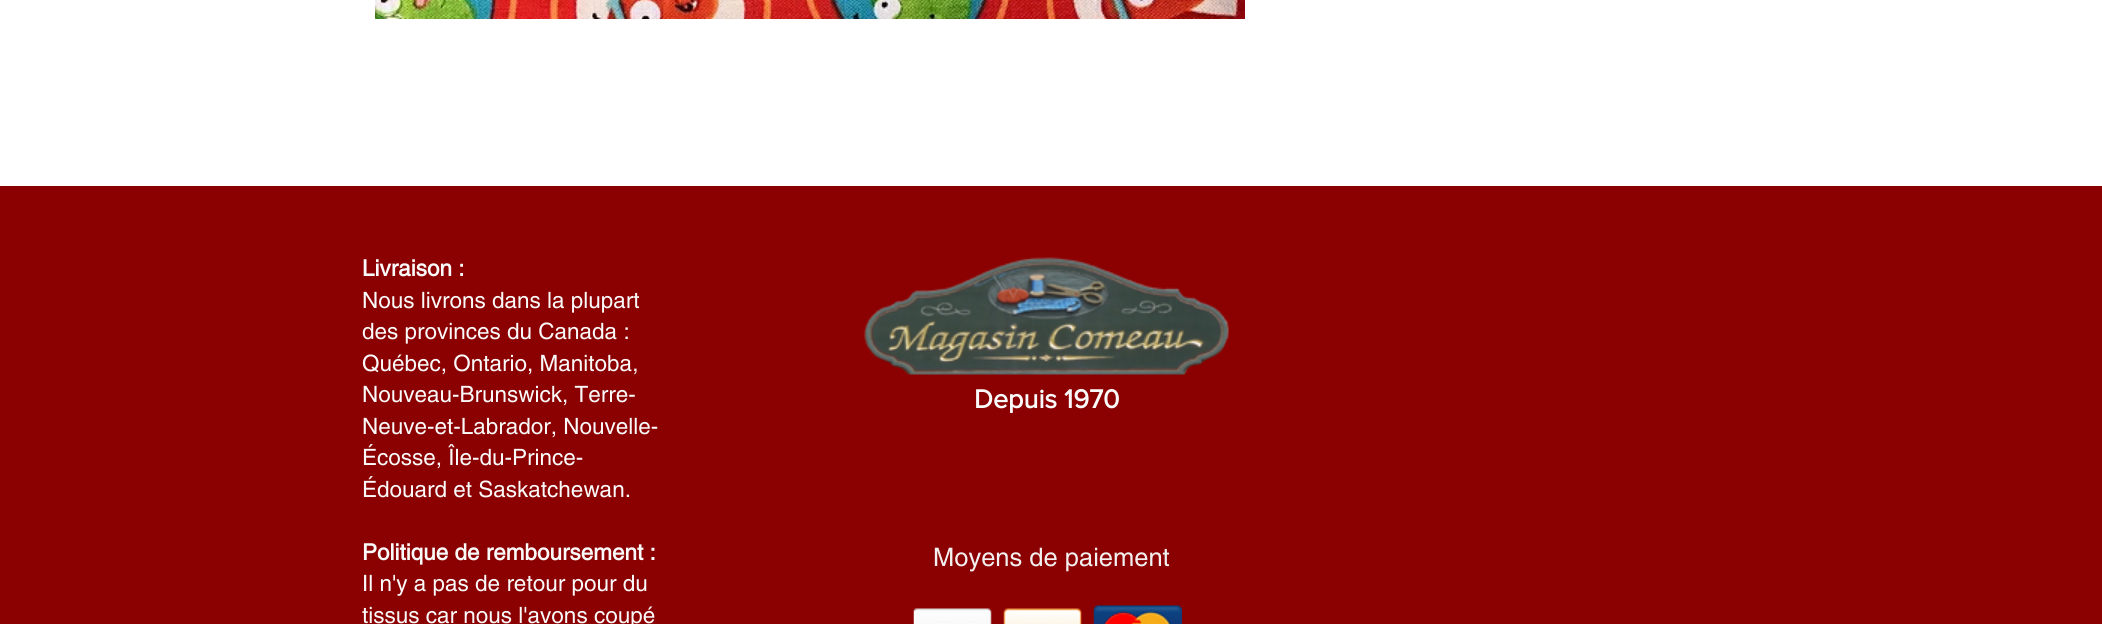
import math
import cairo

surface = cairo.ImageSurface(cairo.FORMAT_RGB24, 2102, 624)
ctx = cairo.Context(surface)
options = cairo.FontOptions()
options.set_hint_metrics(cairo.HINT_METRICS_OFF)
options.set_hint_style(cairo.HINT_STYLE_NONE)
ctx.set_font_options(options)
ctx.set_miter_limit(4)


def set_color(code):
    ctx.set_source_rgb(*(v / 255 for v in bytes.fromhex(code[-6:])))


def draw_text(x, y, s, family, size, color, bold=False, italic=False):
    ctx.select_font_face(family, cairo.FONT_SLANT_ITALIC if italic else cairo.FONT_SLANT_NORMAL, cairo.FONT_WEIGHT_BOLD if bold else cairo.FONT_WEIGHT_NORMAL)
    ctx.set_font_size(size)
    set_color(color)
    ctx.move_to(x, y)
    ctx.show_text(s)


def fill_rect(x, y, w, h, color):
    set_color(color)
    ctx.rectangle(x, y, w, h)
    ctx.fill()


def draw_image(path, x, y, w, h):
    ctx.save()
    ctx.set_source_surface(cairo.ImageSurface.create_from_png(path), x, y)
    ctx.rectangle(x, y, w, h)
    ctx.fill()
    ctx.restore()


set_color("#ffffff")
ctx.paint()
draw_image("assets/img1.png", 375, 0, 870, 19)
fill_rect(0, 186, 2102, 438, "#8b0000")
draw_text(362, 276, "Livraison :", "helvetica", 22.5, "#fafafa", bold=True)
draw_text(362, 308, "Nous livrons dans la plupart", "helvetica", 22.5, "#fafafa")
draw_text(362, 339, "des provinces du Canada :", "helvetica", 22.5, "#fafafa")
draw_text(362, 371, "Québec, Ontario, Manitoba,", "helvetica", 22.5, "#fafafa")
draw_text(362, 402, "Nouveau-Brunswick, Terre-", "helvetica", 22.5, "#fafafa")
draw_text(362, 434, "Neuve-et-Labrador, Nouvelle-", "helvetica", 22.5, "#fafafa")
draw_text(362, 465, "Écosse, Île-du-Prince-", "helvetica", 22.5, "#fafafa")
draw_text(362, 497, "Édouard et Saskatchewan.", "helvetica", 22.5, "#fafafa")
draw_text(362, 560, "Politique de remboursement :", "helvetica", 22.5, "#fafafa", bold=True)
draw_text(362, 591, "Il n'y a pas de retour pour du", "helvetica", 22.5, "#fafafa")
draw_text(362, 623, "tissus car nous l'avons coupé", "helvetica", 22.5, "#fafafa")
draw_image("assets/img2.png", 863, 257, 366, 118)
draw_text(974, 408, "Depuis 1970", "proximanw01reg", 27, "#fafafa", bold=True)
draw_text(933, 566, "Moyens de paiement", "helvetica", 25.5, "#f2f0f0")
draw_image("assets/img3.png", 913, 608, 79, 16)
draw_image("assets/img4.png", 1003, 608, 79, 16)
draw_image("assets/img5.png", 1093, 605, 89, 19)
surface.write_to_png("output.png")
